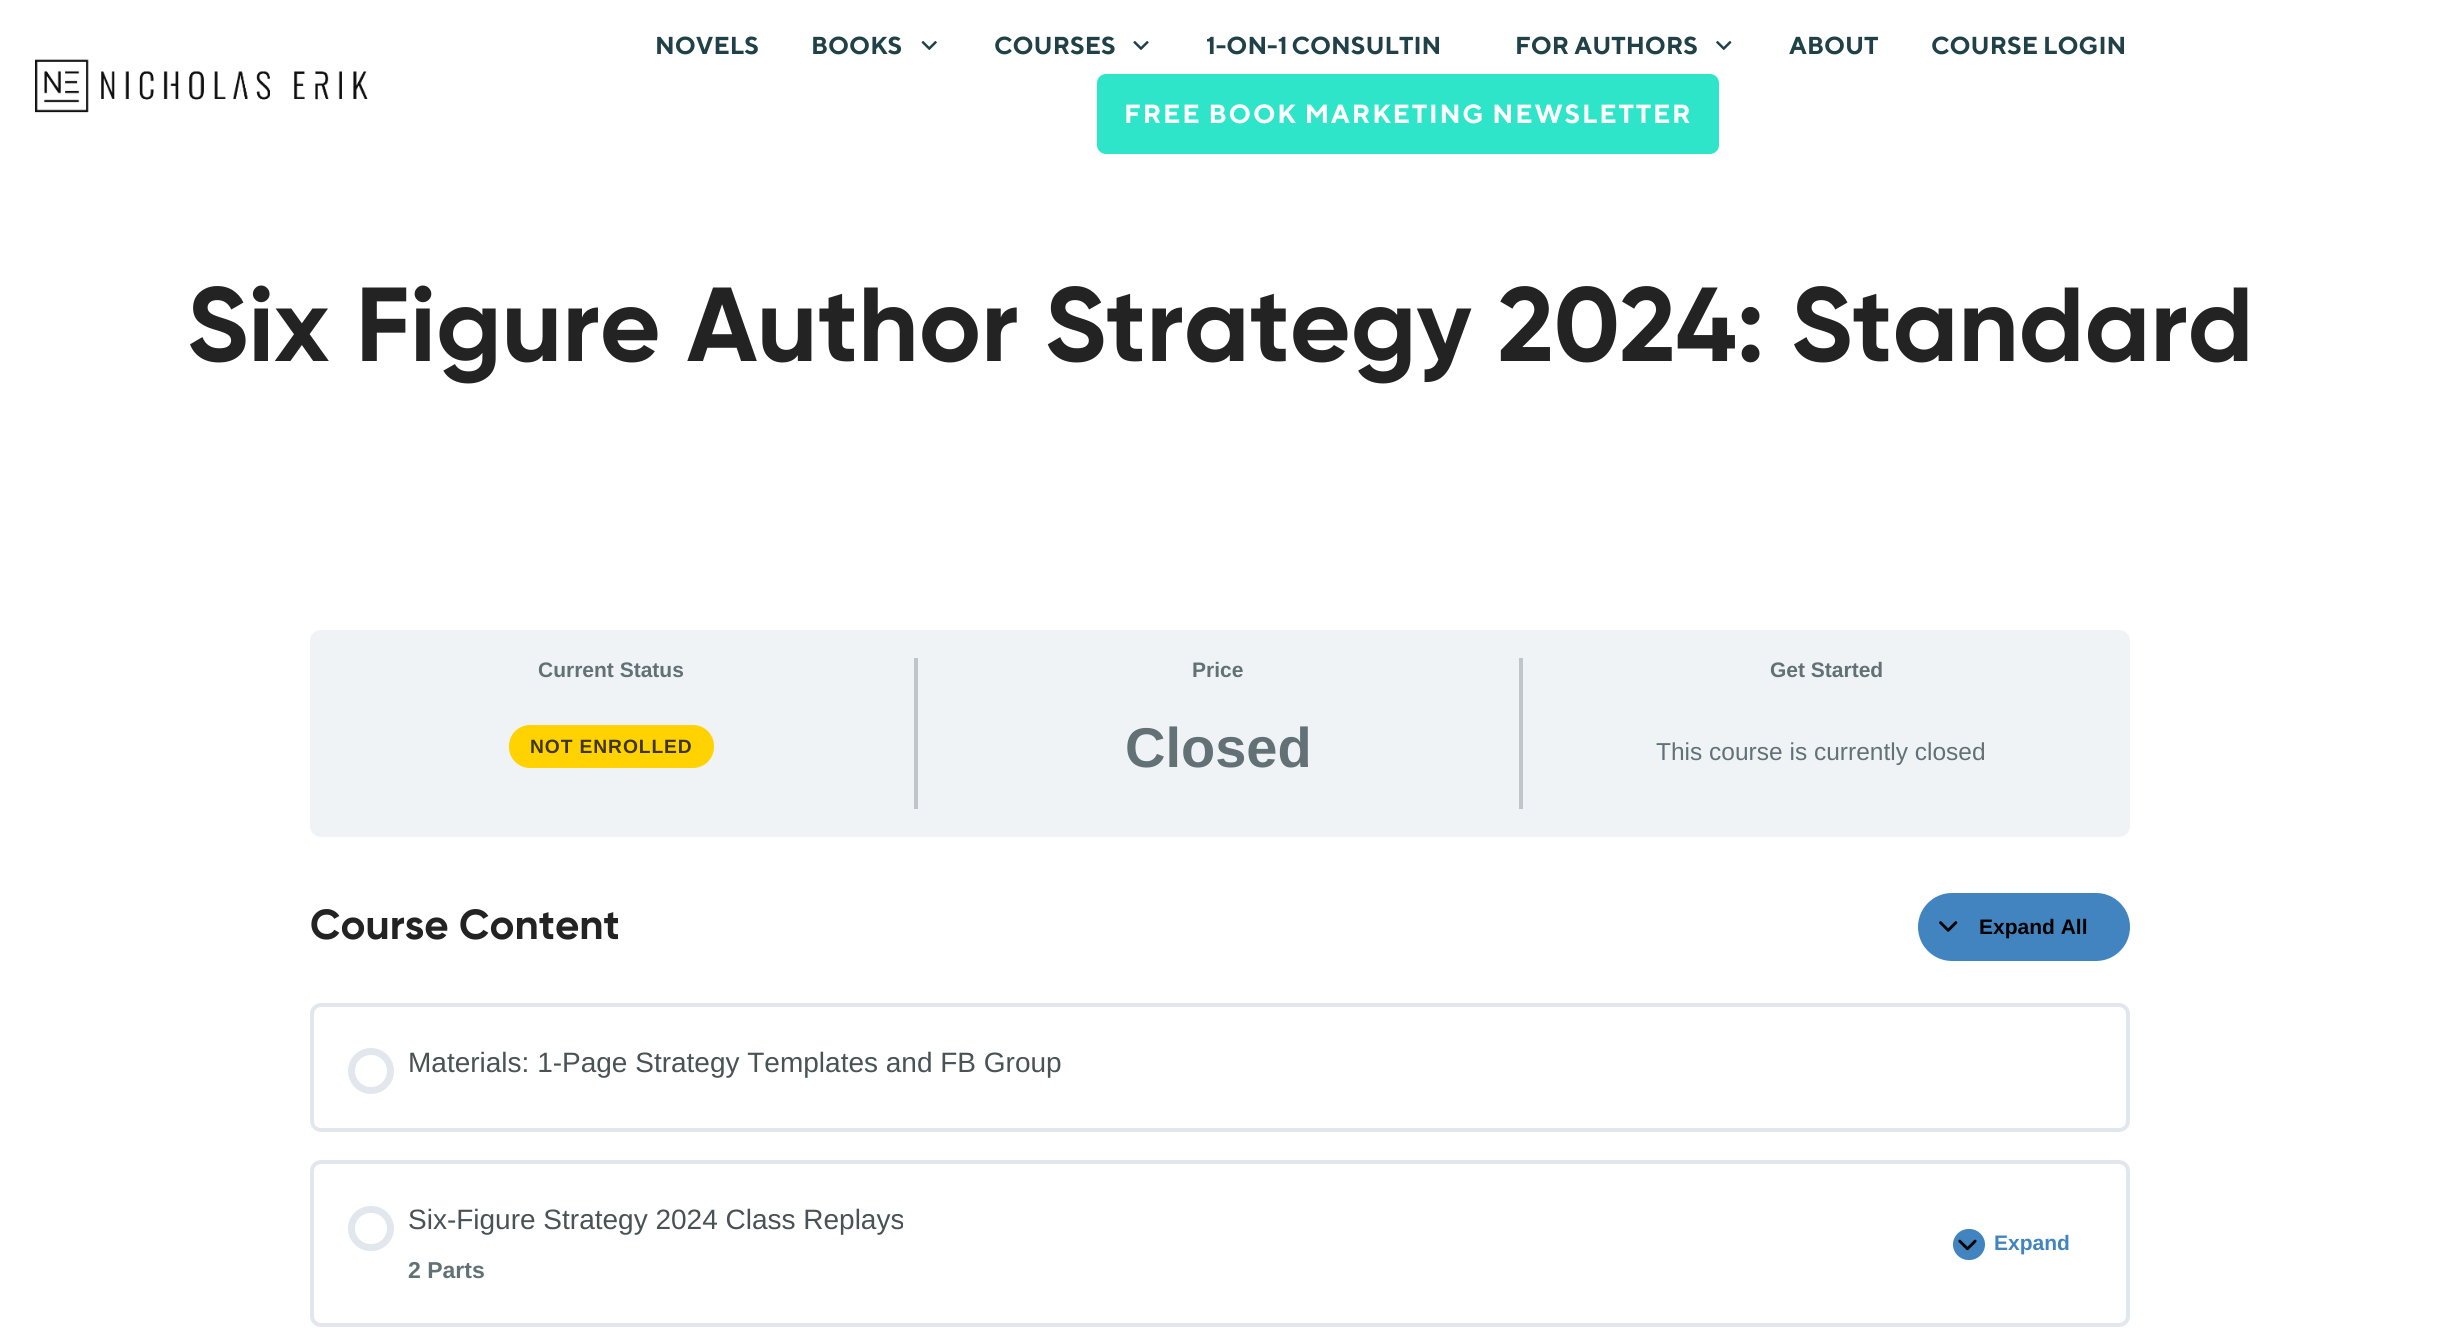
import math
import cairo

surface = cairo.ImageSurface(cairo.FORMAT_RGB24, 2438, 1333)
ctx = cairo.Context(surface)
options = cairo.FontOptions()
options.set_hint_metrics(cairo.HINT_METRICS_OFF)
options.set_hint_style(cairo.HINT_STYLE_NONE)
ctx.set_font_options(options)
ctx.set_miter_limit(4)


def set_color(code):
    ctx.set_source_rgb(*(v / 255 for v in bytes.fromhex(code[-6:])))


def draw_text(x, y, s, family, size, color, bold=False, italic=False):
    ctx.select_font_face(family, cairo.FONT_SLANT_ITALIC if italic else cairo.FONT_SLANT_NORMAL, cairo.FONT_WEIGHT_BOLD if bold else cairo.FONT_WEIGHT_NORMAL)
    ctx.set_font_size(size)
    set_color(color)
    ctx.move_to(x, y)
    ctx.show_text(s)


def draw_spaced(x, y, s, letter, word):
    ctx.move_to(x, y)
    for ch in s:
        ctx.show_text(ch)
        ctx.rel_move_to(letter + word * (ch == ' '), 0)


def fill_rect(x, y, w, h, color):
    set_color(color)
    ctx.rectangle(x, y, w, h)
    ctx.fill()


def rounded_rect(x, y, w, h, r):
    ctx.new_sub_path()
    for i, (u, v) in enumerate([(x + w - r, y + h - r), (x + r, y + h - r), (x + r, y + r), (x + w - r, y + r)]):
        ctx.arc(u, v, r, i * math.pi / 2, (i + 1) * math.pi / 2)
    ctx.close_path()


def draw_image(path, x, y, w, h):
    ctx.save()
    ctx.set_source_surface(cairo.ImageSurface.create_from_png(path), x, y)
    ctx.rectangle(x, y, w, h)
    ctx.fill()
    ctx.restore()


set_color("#ffffff")
ctx.paint()
draw_image("assets/img1.png", 35, 59, 333, 54)
draw_text(655, 54, "NOVELS", "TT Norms", 24.5, "#204147", bold=True)
draw_text(811, 54, "BOOKS", "TT Norms", 24.5, "#204147", bold=True)
draw_image("assets/img2.png", 921, 41, 16, 9)
draw_text(994, 54, "COURSES", "TT Norms", 24.5, "#204147", bold=True)
draw_image("assets/img3.png", 1133, 41, 16, 9)
draw_spaced(1206, 54, "1-ON-1 CONSULTIN", 0, -1)
draw_text(1515, 54, "FOR AUTHORS", "TT Norms", 24.5, "#204147", bold=True)
draw_image("assets/img4.png", 1716, 41, 16, 9)
draw_text(1789, 54, "ABOUT", "TT Norms", 24.5, "#204147", bold=True)
draw_text(1931, 54, "COURSE LOGIN", "TT Norms", 24.5, "#204147", bold=True)
set_color("#2fe5c9")
rounded_rect(1097, 74, 622, 80, 9)
ctx.fill()
ctx.set_font_size(26.25)
set_color("#ffffff")
draw_spaced(1124, 123, "FREE BOOK MARKETING NEWSLETTER", 1.75, 0)
draw_text(187, 361, "Six Figure Author Strategy 2024: Standard", "Gilroy", 105, "#232323", bold=True)
set_color("#f0f3f6")
rounded_rect(310, 630, 1820, 207, 11)
ctx.fill()
fill_rect(914, 658, 4, 151, "#bec5cb")
draw_text(538, 677, "Current Status", "Liberation Sans", 21, "#617175", bold=True)
set_color("#ffd200")
rounded_rect(509, 725, 205, 43, 21)
ctx.fill()
ctx.set_font_size(19.25)
set_color("#403500")
draw_spaced(530, 753, "NOT ENROLLED", 0.9, 0)
fill_rect(1519, 658, 4, 151, "#bec5cb")
draw_text(1192, 677, "Price", "Liberation Sans", 21, "#617175", bold=True)
draw_text(1125, 767, "Closed", "Liberation Sans", 56, "#617175", bold=True)
draw_text(1770, 677, "Get Started", "Liberation Sans", 21, "#617175", bold=True)
draw_text(1656, 760, "This course is currently closed", "Liberation Sans", 24.5, "#617175")
draw_text(310, 939, "Course Content", "Gilroy", 42, "#232323", bold=True)
set_color("#4184bf")
rounded_rect(1918, 893, 212, 68, 34)
ctx.fill()
draw_image("assets/img5.png", 1939, 921, 19, 11)
draw_text(1979, 934, "Expand All", "Liberation Sans", 21, "#000000", bold=True)
rounded_rect(312, 1005, 1816, 125, 9)
set_color("#e2e7ed")
ctx.set_line_width(4)
ctx.stroke()
ctx.arc(371, 1071, 19.5, 0, 2 * math.pi)
ctx.set_line_width(7)
ctx.stroke()
draw_text(408, 1072, "Materials: 1-Page Strategy Templates and FB Group", "Liberation Sans", 28, "#495255")
rounded_rect(312, 1162, 1816, 163, 9)
set_color("#e2e7ed")
ctx.set_line_width(4)
ctx.stroke()
rounded_rect(351.5, 1209.5, 39, 38, 19)
ctx.set_line_width(7)
ctx.stroke()
draw_text(408, 1229, "Six-Figure Strategy 2024 Class Replays", "Liberation Sans", 28, "#495255")
draw_text(408, 1278, "2 Parts", "Liberation Sans", 23, "#617175", bold=True)
set_color("#4184bf")
rounded_rect(1953, 1229, 32, 31, 15.5)
ctx.fill()
draw_image("assets/img6.png", 1958, 1239, 19, 12)
draw_text(1994, 1250, "Expand", "Liberation Sans", 21, "#4184bf", bold=True)
surface.write_to_png("output.png")
